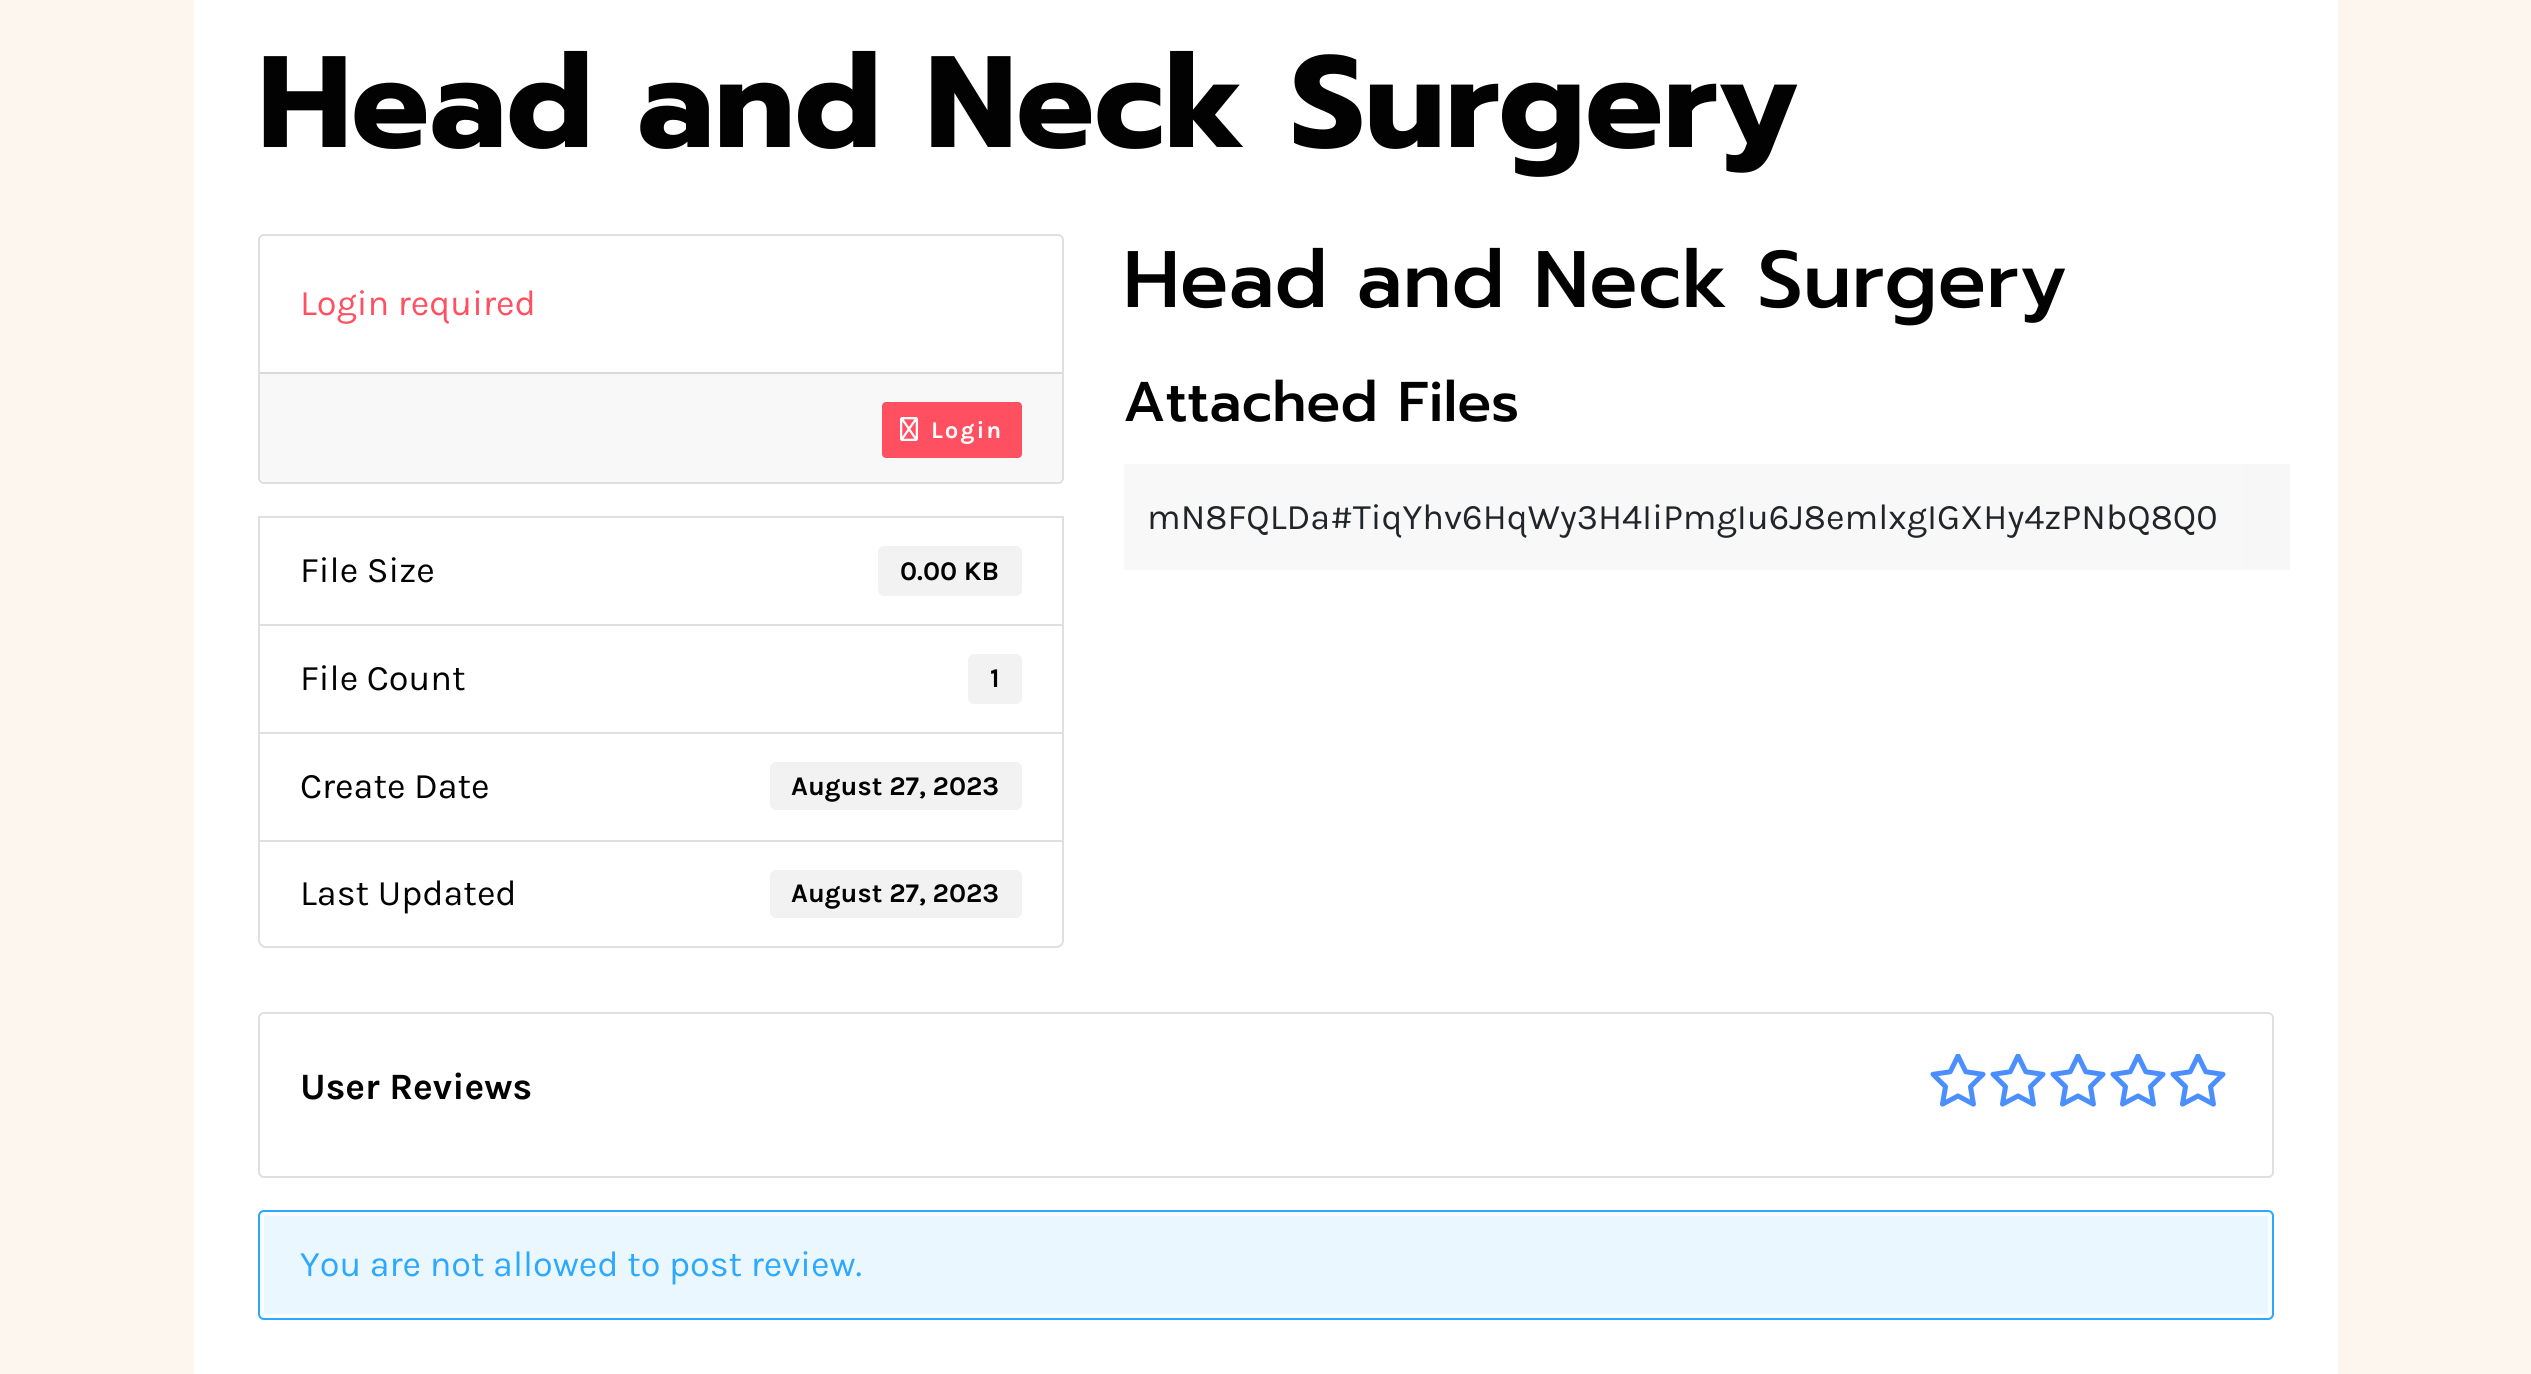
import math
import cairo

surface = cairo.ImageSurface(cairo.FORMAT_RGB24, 2531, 1374)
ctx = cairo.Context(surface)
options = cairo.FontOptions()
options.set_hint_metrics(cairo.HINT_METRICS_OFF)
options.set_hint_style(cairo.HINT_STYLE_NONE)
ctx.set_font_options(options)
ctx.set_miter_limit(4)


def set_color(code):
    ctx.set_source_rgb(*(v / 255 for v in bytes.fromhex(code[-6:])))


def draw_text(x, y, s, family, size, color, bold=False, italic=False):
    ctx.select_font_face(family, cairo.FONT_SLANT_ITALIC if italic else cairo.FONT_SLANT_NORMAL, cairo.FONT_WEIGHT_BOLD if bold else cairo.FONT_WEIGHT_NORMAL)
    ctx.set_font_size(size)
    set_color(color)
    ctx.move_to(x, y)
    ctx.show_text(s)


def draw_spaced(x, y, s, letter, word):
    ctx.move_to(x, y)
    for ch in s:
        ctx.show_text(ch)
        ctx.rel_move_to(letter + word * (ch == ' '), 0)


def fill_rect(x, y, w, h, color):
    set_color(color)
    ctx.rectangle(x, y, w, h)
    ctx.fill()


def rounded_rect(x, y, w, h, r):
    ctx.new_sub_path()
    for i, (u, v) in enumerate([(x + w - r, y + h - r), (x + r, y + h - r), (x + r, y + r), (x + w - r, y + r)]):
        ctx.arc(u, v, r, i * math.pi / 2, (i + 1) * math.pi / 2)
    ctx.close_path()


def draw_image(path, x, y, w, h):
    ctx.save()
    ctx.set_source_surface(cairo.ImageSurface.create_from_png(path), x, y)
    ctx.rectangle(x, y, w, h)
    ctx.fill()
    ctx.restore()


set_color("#fdf6ee")
ctx.paint()
fill_rect(194, 0, 2144, 1374, "#ffffff")
draw_text(258, 147, "Head and Neck Surgery", "Prompt", 130, "#020202", bold=True)
rounded_rect(259, 235, 804, 248, 5)
set_color("#dfdfdf")
ctx.stroke()
draw_text(300, 315, "Login required", "Karla", 36, "#ff5062")
set_color("#f8f8f8")
ctx.new_path()
ctx.move_to(260, 372)
ctx.line_to(1062, 372)
ctx.line_to(1062, 476)
ctx.curve_to(1062, 479.5, 1059.5, 482, 1056, 482)
ctx.line_to(266, 482)
ctx.curve_to(262.5, 482, 260, 479.5, 260, 476)
ctx.close_path()
ctx.fill()
fill_rect(260, 372, 802, 2, "#d9d9d9")
set_color("#ff5062")
rounded_rect(883, 403, 138, 54, 3)
ctx.fill_preserve()
ctx.stroke()
draw_image("assets/img1.png", 900, 417, 18, 24)
ctx.select_font_face("Karla", cairo.FONT_SLANT_NORMAL, cairo.FONT_WEIGHT_BOLD)
ctx.set_font_size(24)
set_color("#ffffff")
draw_spaced(931, 438, "Login", 2, 0)
ctx.rectangle(259, 517, 804, 108)
set_color("#dfdfdf")
ctx.stroke()
draw_text(300, 582, "File Size", "Karla", 36, "#020202")
set_color("#f2f2f2")
rounded_rect(878, 546, 144, 50, 6)
ctx.fill()
draw_text(900, 580, "0.00 KB", "Karla", 27, "#020202", bold=True)
ctx.rectangle(259, 625, 804, 108)
set_color("#dfdfdf")
ctx.stroke()
draw_text(300, 690, "File Count", "Karla", 36, "#020202")
set_color("#f2f2f2")
rounded_rect(968, 654, 54, 50, 6)
ctx.fill()
draw_text(990, 687, "1", "Karla", 27, "#020202", bold=True)
ctx.rectangle(259, 733, 804, 108)
set_color("#dfdfdf")
ctx.stroke()
draw_text(300, 798, "Create Date", "Karla", 36, "#020202")
set_color("#f2f2f2")
rounded_rect(770, 762, 252, 48, 6)
ctx.fill()
draw_text(791, 795, "August 27, 2023", "Karla", 27, "#020202", bold=True)
set_color("#ffffff")
ctx.new_path()
ctx.move_to(259, 841)
ctx.line_to(1063, 841)
ctx.line_to(1063, 940)
ctx.curve_to(1063, 944, 1060, 947, 1056, 947)
ctx.line_to(266, 947)
ctx.curve_to(262, 947, 259, 944, 259, 940)
ctx.close_path()
ctx.fill_preserve()
set_color("#dfdfdf")
ctx.stroke()
draw_text(300, 905, "Last Updated", "Karla", 36, "#020202")
set_color("#f2f2f2")
rounded_rect(770, 870, 252, 48, 6)
ctx.fill()
draw_text(791, 902, "August 27, 2023", "Karla", 27, "#020202", bold=True)
draw_text(1123, 307, "Head and Neck Surgery", "Prompt Medium", 80, "#020202")
draw_text(1123, 421, "Attached Files", "Prompt Medium", 56, "#020202")
fill_rect(1124, 464, 1118, 106, "#f8f8f8")
draw_text(1147, 529, "mN8FQLDa#TiqYhv6HqWy3H4IiPmgIu6J8emlxgIGXHy4zPNbQ8Q0", "Karla", 36, "#212529")
fill_rect(2242, 464, 48, 106, "#f7f7f7")
rounded_rect(259, 1013, 2014, 164, 5)
set_color("#dfdfdf")
ctx.stroke()
draw_text(300, 1099, "User Reviews", "Karla", 37.25, "#020202", bold=True)
draw_image("assets/img2.png", 1930, 1054, 56, 53)
draw_image("assets/img2.png", 1990, 1054, 56, 53)
draw_image("assets/img2.png", 2050, 1054, 56, 53)
draw_image("assets/img2.png", 2110, 1054, 56, 53)
draw_image("assets/img2.png", 2170, 1054, 56, 53)
set_color("#ebf7ff")
rounded_rect(258, 1210, 2016, 110, 6)
ctx.fill()
rounded_rect(262, 1214, 2008, 102, 2)
set_color("#f9fdff")
ctx.set_line_width(4)
ctx.stroke()
rounded_rect(259, 1211, 2014, 108, 5)
set_color("#2ca8ff")
ctx.set_line_width(2)
ctx.stroke()
draw_text(300, 1276, "You are not allowed to post review.", "Karla", 36, "#2ca8ff")
surface.write_to_png("output.png")
